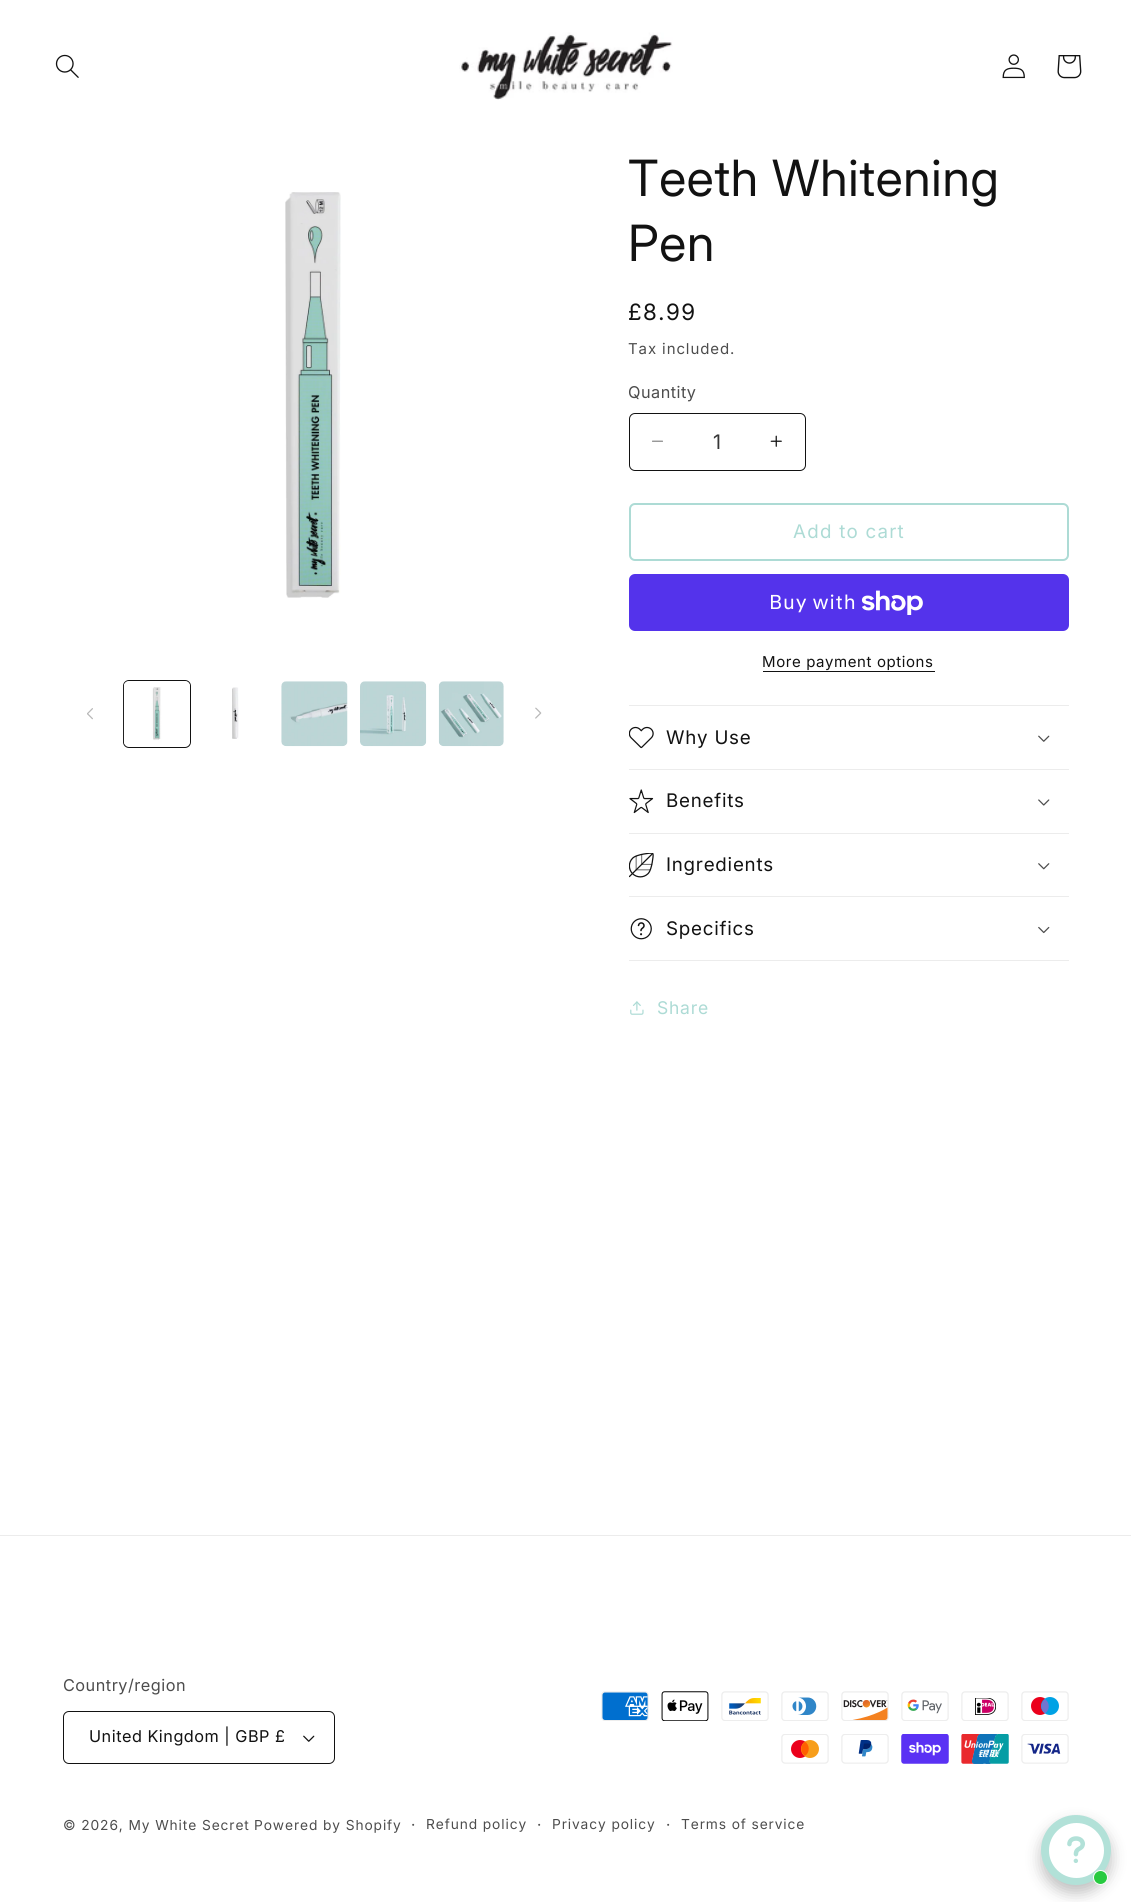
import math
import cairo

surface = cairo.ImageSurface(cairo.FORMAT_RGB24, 1131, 1902)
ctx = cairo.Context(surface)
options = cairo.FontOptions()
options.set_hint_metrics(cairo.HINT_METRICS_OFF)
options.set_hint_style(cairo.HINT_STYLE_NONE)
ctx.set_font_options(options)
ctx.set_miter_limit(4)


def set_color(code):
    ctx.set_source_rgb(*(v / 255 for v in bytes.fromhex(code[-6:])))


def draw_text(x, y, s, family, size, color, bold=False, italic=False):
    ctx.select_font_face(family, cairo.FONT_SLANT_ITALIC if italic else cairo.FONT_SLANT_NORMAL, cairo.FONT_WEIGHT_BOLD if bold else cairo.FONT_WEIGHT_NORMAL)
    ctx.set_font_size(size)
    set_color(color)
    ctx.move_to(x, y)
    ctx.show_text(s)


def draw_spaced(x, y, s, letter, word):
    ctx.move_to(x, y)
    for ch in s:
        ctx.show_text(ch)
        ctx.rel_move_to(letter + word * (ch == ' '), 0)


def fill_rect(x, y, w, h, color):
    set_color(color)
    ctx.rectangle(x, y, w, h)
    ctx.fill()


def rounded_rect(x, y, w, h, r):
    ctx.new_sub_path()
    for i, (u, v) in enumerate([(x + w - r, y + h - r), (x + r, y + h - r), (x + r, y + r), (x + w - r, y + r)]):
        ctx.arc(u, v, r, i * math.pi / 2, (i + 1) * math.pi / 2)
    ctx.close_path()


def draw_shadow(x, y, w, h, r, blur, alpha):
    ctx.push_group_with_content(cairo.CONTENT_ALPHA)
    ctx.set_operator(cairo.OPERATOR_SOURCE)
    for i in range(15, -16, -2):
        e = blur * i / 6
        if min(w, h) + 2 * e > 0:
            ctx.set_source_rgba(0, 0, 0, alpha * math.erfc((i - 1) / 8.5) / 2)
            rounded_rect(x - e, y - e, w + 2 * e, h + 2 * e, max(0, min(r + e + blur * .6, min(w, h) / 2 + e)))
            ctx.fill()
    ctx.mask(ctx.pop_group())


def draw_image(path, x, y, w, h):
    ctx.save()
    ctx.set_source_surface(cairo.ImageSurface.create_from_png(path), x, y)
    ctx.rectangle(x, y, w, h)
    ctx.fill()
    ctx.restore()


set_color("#ffffff")
ctx.paint()
draw_image("assets/img1.png", 55, 54, 24, 24)
draw_image("assets/img2.png", 459, 32, 214, 68)
draw_image("assets/img3.png", 1002, 54, 23, 25)
draw_image("assets/img4.png", 1057, 55, 25, 24)
draw_image("assets/img5.png", 285, 192, 56, 406)
draw_image("assets/img6.png", 87, 708, 6, 12)
rounded_rect(123.5, 680.5, 67, 67, 5.5)
set_color("#121212")
ctx.set_line_width(1)
ctx.stroke()
draw_image("assets/img7.png", 123, 681, 67, 65)
draw_image("assets/img8.png", 232, 687, 7, 52)
draw_image("assets/img9.png", 281, 681, 67, 66)
draw_image("assets/img10.png", 360, 681, 67, 66)
draw_image("assets/img11.png", 438, 681, 66, 66)
draw_image("assets/img12.png", 535, 707, 7, 12)
ctx.select_font_face("Inter")
ctx.set_font_size(50)
draw_spaced(628, 196, "Teeth Whitening", 0.75, 0)
draw_spaced(628, 261, "Pen", 0.75, 0)
ctx.select_font_face("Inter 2")
ctx.set_font_size(22.5)
draw_spaced(628, 320, "£8.99", 1.5, 0)
ctx.select_font_face("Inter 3")
ctx.set_font_size(15)
set_color("#4d4d4d")
draw_spaced(628, 354, "Tax included.", 0.9, 0)
ctx.set_font_size(16.25)
draw_spaced(628, 398, "Quantity", 0.5, 0)
draw_image("assets/img13.png", 652, 440, 11, 2)
draw_image("assets/img14.png", 770, 435, 12, 12)
rounded_rect(629.5, 413.5, 176, 57, 5.5)
set_color("#121212")
ctx.stroke()
draw_text(713, 449, "1", "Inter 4", 20, "#363636")
rounded_rect(630, 504, 438, 56, 5)
set_color("#addbd5")
ctx.set_line_width(2)
ctx.stroke()
ctx.select_font_face("Inter 3")
ctx.set_font_size(18.75)
draw_spaced(793, 538, "Add to cart", 1.25, 0)
set_color("#5433eb")
rounded_rect(629, 574, 440, 57, 6)
ctx.fill()
ctx.select_font_face("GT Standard")
ctx.set_font_size(20)
set_color("#ffffff")
draw_spaced(769, 609, "Buy with", 0.75, 0)
draw_image("assets/img15.png", 861, 590, 62, 25)
ctx.select_font_face("Inter 3")
ctx.set_font_size(15)
set_color("#121212")
draw_spaced(762, 667, "More payment options", 0.6, 0)
fill_rect(763, 671, 172, 1, "#121212")
fill_rect(629, 705, 440, 1, "#ececec")
fill_rect(629, 769, 440, 1, "#ececec")
draw_image("assets/img16.png", 629, 726, 25, 23)
ctx.set_font_size(18.75)
set_color("#121212")
draw_spaced(666, 744, "Why Use", 0.75, 0)
draw_image("assets/img17.png", 1038, 735, 12, 7)
fill_rect(629, 833, 440, 1, "#ececec")
draw_image("assets/img18.png", 629, 789, 25, 25)
set_color("#121212")
draw_spaced(666, 807, "Benefits", 0.75, 0)
draw_image("assets/img19.png", 1038, 799, 12, 7)
fill_rect(629, 896, 440, 1, "#ececec")
draw_image("assets/img20.png", 629, 853, 25, 25)
set_color("#121212")
draw_spaced(666, 871, "Ingredients", 0.75, 0)
draw_image("assets/img21.png", 1038, 863, 12, 7)
fill_rect(629, 960, 440, 1, "#ececec")
draw_image("assets/img22.png", 630, 918, 22, 22)
set_color("#121212")
draw_spaced(666, 935, "Specifics", 0.75, 0)
draw_image("assets/img23.png", 1038, 926, 12, 8)
draw_image("assets/img24.png", 630, 1001, 14, 14)
ctx.set_font_size(17.5)
set_color("#addbd5")
draw_spaced(657, 1014, "Share", 0.75, 0)
fill_rect(0, 1535, 1131, 1, "#ececec")
ctx.set_font_size(16.25)
set_color("#4d4d4d")
draw_spaced(63, 1691, "Country/region", 0.5, 0)
draw_image("assets/img25.png", 303, 1735, 12, 7)
rounded_rect(63.5, 1711.5, 271, 52, 5.5)
set_color("#121212")
ctx.set_line_width(1)
ctx.stroke()
draw_spaced(89, 1742, "United Kingdom | GBP £", 0.5, 0)
draw_image("assets/img26.png", 601, 1691, 48, 30)
draw_image("assets/img27.png", 661, 1691, 48, 30)
draw_image("assets/img28.png", 721, 1691, 48, 30)
draw_image("assets/img29.png", 781, 1691, 48, 30)
draw_image("assets/img30.png", 841, 1691, 48, 30)
draw_image("assets/img31.png", 901, 1691, 48, 30)
draw_image("assets/img32.png", 961, 1691, 48, 30)
draw_image("assets/img33.png", 1021, 1691, 48, 30)
draw_image("assets/img34.png", 781, 1734, 48, 30)
draw_image("assets/img35.png", 841, 1734, 48, 30)
draw_image("assets/img36.png", 901, 1734, 48, 30)
draw_image("assets/img37.png", 961, 1734, 48, 30)
draw_image("assets/img38.png", 1021, 1734, 48, 30)
ctx.set_font_size(13.75)
set_color("#4d4d4d")
draw_spaced(63, 1830, "© 2026, My White Secret", 0.9, 0)
draw_spaced(254, 1830, "Powered by Shopify", 0.9, 0)
ctx.set_font_size(15)
draw_spaced(411, 1830, "·", 0.9, 0)
ctx.set_font_size(13.75)
draw_spaced(426, 1829, "Refund policy", 0.9, 0)
ctx.set_font_size(15)
draw_spaced(537, 1830, "·", 0.9, 0)
ctx.set_font_size(13.75)
draw_spaced(552, 1829, "Privacy policy", 0.9, 0)
ctx.set_font_size(15)
draw_spaced(666, 1830, "·", 0.9, 0)
ctx.set_font_size(13.75)
draw_spaced(681, 1829, "Terms of service", 0.9, 0)
set_color("#000000")
draw_shadow(1041, 1823, 70, 70, 35, 7.5, 0.25)
set_color("#b2e1d8")
ctx.arc(1076, 1850, 35, 0, 2 * math.pi)
ctx.fill()
set_color("#ffffff")
ctx.arc(1076.5, 1850.5, 27.5, 0, 2 * math.pi)
ctx.fill()
draw_image("assets/img39.png", 1067, 1836, 18, 27)
set_color("#27ca40")
ctx.arc(1100.5, 1877.5, 7, 0, 2 * math.pi)
ctx.fill_preserve()
set_color("#ffffff")
ctx.stroke()
surface.write_to_png("output.png")
